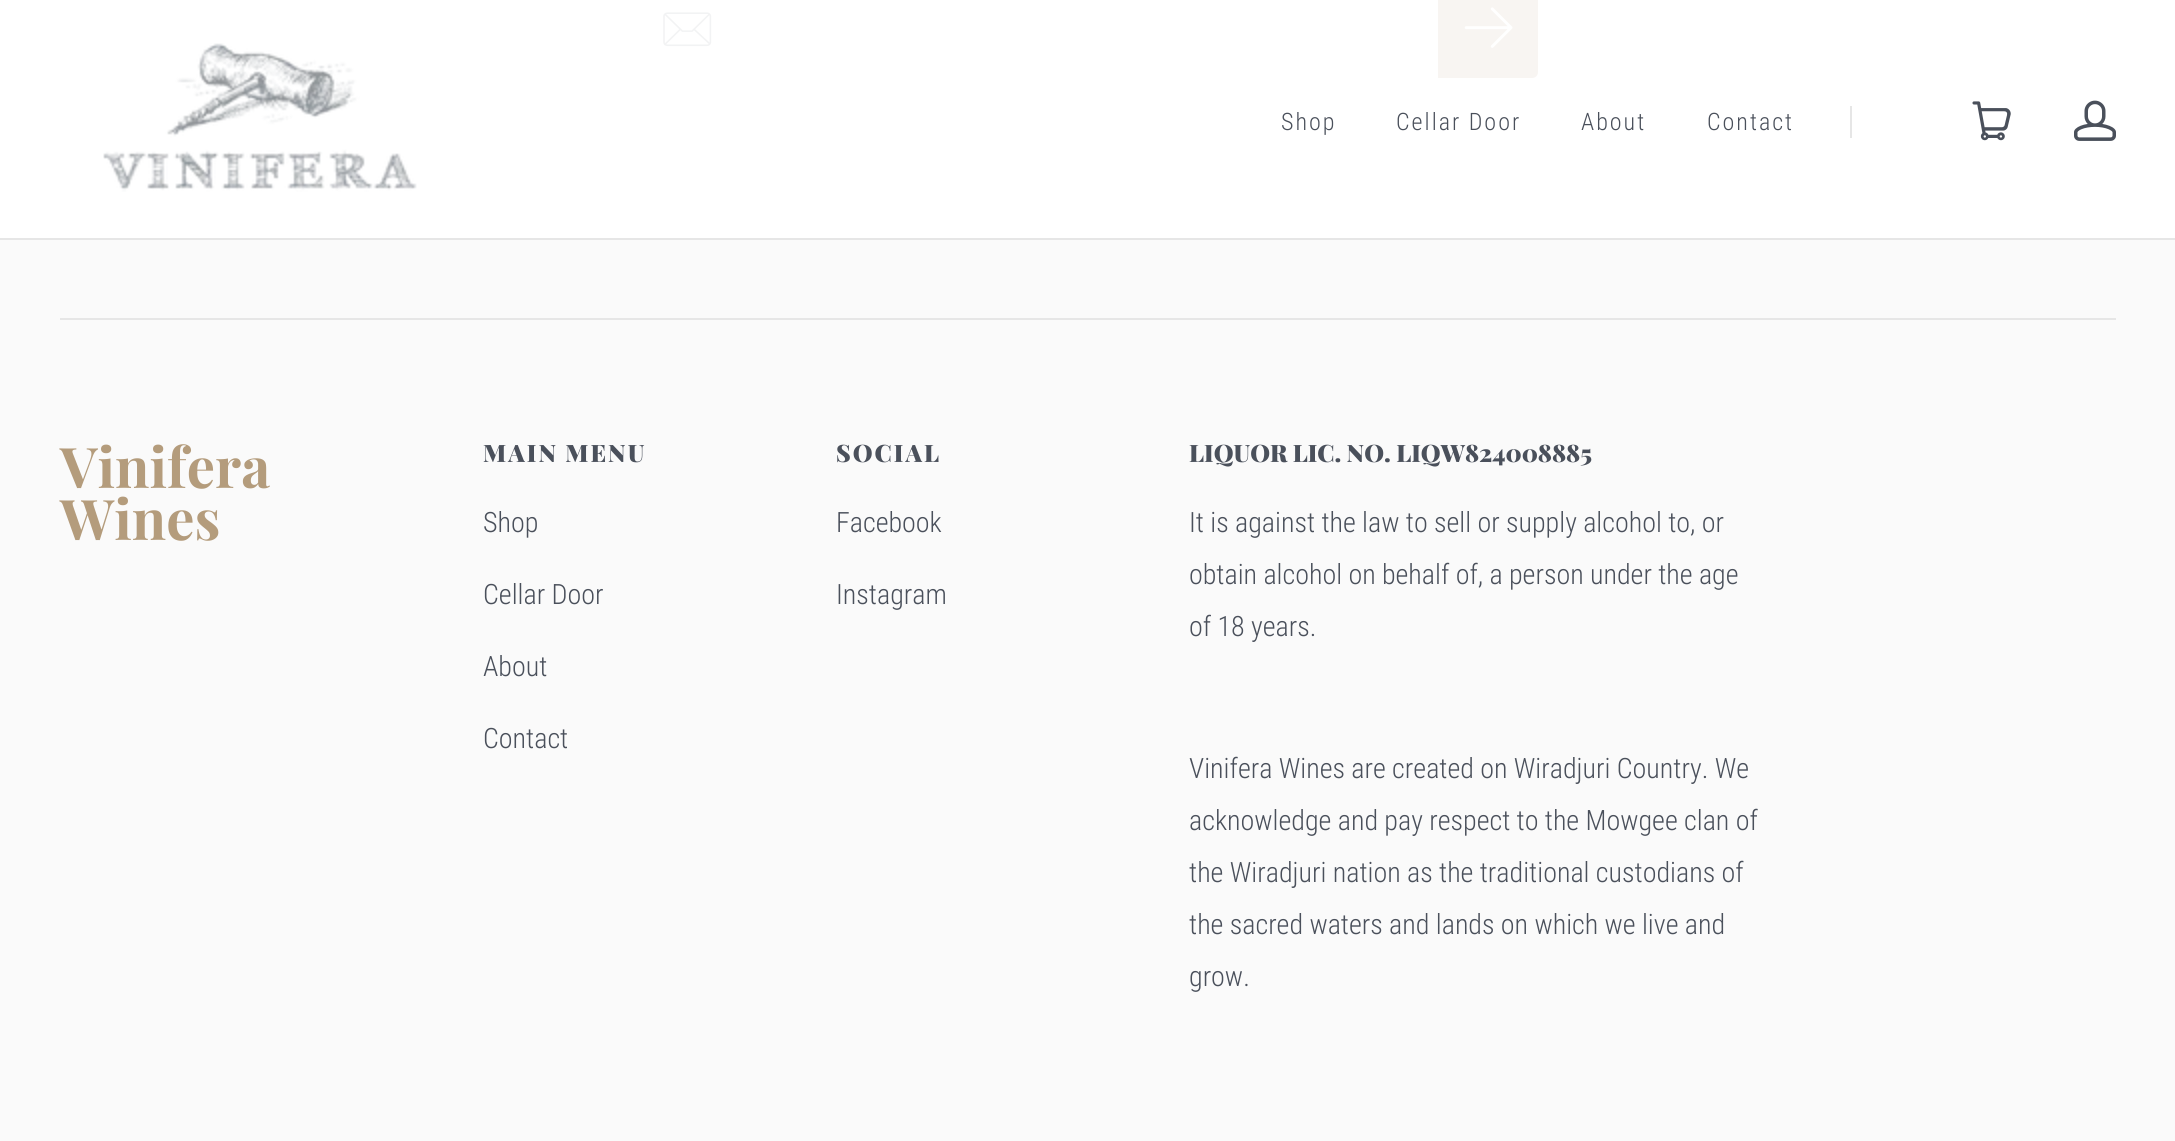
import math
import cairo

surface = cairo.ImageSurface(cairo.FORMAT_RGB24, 2175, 1141)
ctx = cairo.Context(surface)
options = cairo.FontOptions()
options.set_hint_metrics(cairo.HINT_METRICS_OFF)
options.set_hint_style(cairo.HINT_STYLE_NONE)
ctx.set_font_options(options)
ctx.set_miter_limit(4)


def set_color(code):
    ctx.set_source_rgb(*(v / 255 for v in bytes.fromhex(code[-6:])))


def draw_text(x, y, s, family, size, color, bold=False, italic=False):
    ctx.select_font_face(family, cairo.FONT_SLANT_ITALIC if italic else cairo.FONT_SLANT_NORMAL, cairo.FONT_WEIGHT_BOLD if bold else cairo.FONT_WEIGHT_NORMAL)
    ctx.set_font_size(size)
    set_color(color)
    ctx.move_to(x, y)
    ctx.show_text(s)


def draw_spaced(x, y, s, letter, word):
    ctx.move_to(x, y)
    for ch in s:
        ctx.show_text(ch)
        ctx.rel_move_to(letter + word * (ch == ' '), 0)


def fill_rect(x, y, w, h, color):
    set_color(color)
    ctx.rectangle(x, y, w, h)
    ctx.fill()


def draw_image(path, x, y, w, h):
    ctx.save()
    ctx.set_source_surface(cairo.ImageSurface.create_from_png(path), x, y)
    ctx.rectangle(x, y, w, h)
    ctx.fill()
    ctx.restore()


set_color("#ffffff")
ctx.paint()
draw_image("assets/img1.png", 663, 12, 49, 35)
set_color("#f8f5f2")
ctx.new_path()
ctx.move_to(1438, -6)
ctx.line_to(1532, -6)
ctx.curve_to(1535.5, -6, 1538, -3.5, 1538, 0)
ctx.line_to(1538, 72)
ctx.curve_to(1538, 75.5, 1535.5, 78, 1532, 78)
ctx.line_to(1438, 78)
ctx.close_path()
ctx.fill()
draw_image("assets/img2.png", 1464, 7, 49, 41)
fill_rect(0, 238, 2175, 2, "#e6e6e6")
draw_image("assets/img3.png", 103, 43, 314, 149)
ctx.select_font_face("Roboto Condensed Light")
ctx.set_font_size(24)
set_color("#4a505b")
draw_spaced(1281, 130, "Shop", 2, 0)
draw_spaced(1396, 130, "Cellar Door", 2, 0)
draw_spaced(1581, 130, "About", 2, 0)
draw_spaced(1707, 130, "Contact", 2, 0)
fill_rect(1850, 106, 2, 32, "#e6e6e6")
draw_image("assets/img4.png", 1972, 101, 39, 40)
draw_image("assets/img5.png", 2074, 100, 42, 41)
fill_rect(0, 240, 2175, 901, "#fafafa")
fill_rect(60, 318, 2056, 2, "#e6e6e6")
draw_text(60, 488, "Vinifera", "Playfair Display", 56, "#b49c7c", bold=True)
draw_text(60, 540, "Wines", "Playfair Display", 56, "#b49c7c", bold=True)
ctx.select_font_face("Playfair Display Black")
ctx.set_font_size(24)
set_color("#4a505b")
draw_spaced(483, 462, "MAIN MENU", 2, 0)
draw_text(483, 532, "Shop", "Roboto Condensed Light", 28, "#4a505b")
draw_text(483, 604, "Cellar Door", "Roboto Condensed Light", 28, "#4a505b")
draw_text(483, 676, "About", "Roboto Condensed Light", 28, "#4a505b")
draw_text(483, 748, "Contact", "Roboto Condensed Light", 28, "#4a505b")
ctx.select_font_face("Playfair Display Black")
ctx.set_font_size(24)
draw_spaced(836, 462, "SOCIAL", 2, 0)
draw_text(836, 532, "Facebook", "Roboto Condensed Light", 28, "#4a505b")
draw_text(836, 604, "Instagram", "Roboto Condensed Light", 28, "#4a505b")
draw_text(1189, 462, "LIQUOR LIC. NO. LIQW824008885", "Playfair Display Black", 24, "#4a505b")
draw_text(1189, 532, "It is against the law to sell or supply alcohol to, or", "Roboto Condensed Light", 28, "#4a505b")
draw_text(1189, 584, "obtain alcohol on behalf of, a person under the age", "Roboto Condensed Light", 28, "#4a505b")
draw_text(1189, 636, "of 18 years.", "Roboto Condensed Light", 28, "#4a505b")
draw_text(1189, 778, "Vinifera Wines are created on Wiradjuri Country. We", "Roboto Condensed Light", 28, "#4a505b")
draw_text(1189, 830, "acknowledge and pay respect to the Mowgee clan of", "Roboto Condensed Light", 28, "#4a505b")
draw_text(1189, 882, "the Wiradjuri nation as the traditional custodians of", "Roboto Condensed Light", 28, "#4a505b")
draw_text(1189, 934, "the sacred waters and lands on which we live and", "Roboto Condensed Light", 28, "#4a505b")
draw_text(1189, 986, "grow.", "Roboto Condensed Light", 28, "#4a505b")
surface.write_to_png("output.png")
